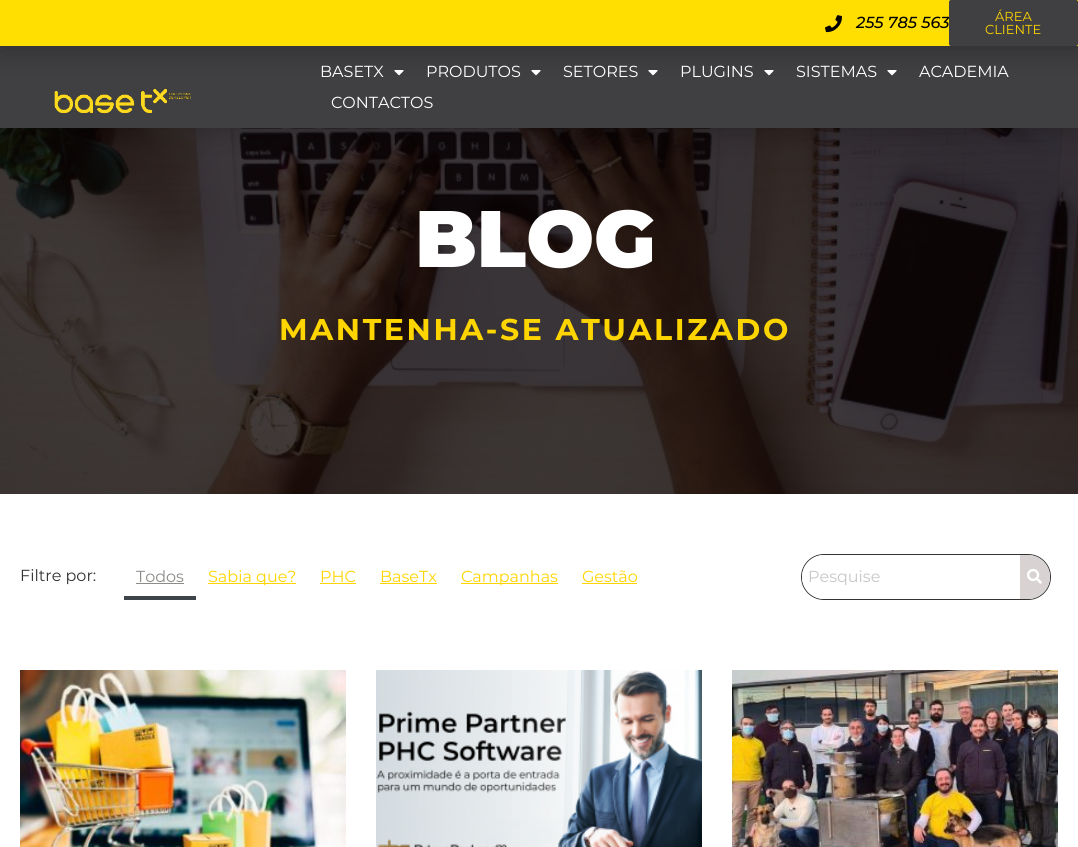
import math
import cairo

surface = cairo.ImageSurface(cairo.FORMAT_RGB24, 1078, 847)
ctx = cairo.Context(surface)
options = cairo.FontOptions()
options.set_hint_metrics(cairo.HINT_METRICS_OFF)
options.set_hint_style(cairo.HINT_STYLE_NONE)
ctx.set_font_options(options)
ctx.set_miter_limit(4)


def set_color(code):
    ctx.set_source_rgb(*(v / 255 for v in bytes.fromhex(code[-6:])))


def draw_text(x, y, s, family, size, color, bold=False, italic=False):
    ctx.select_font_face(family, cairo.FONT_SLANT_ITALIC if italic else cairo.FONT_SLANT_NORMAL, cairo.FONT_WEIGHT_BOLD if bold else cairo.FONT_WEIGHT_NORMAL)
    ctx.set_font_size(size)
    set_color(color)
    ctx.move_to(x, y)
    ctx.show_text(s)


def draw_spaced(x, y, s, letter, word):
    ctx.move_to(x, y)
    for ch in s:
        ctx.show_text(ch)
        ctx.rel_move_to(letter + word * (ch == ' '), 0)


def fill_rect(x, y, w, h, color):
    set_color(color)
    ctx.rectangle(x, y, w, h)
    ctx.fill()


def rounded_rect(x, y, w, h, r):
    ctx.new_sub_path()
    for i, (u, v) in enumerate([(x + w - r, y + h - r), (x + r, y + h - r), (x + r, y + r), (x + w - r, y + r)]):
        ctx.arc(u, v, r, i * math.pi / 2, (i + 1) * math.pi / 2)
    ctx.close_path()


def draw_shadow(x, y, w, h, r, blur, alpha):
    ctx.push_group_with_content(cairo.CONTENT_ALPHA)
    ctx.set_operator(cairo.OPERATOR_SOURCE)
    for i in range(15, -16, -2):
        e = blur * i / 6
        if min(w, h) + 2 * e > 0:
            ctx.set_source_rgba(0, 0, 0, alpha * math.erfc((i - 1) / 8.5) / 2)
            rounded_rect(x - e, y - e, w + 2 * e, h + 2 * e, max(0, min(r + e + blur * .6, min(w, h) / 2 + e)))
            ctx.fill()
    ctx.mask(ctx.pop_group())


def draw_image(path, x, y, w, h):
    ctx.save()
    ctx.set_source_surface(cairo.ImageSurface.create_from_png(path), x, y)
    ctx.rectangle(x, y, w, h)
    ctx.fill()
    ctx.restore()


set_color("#ffffff")
ctx.paint()
draw_image("assets/img4.png", 0, 128, 1078, 366)
set_color("#000000")
draw_shadow(0, 46, 1078, 82, 0, 15, 0.3)
fill_rect(0, 46, 1078, 82, "#403f42")
draw_image("assets/img2.png", 54, 88, 137, 26)
set_color("#000000")
draw_shadow(0, 2, 1078, 46, 0, 15, 0.3)
fill_rect(0, 0, 1078, 46, "#ffde01")
draw_image("assets/img1.png", 825, 15, 17, 18)
draw_text(856, 28, "255 785 563", "Montserrat Medium", 16, "#000000", italic=True)
set_color("#403f42")
rounded_rect(949, 0, 129, 46, 2)
ctx.fill()
draw_text(995, 21, "ÁREA", "Montserrat", 13, "#ffd500")
draw_text(985, 34, "CLIENTE", "Montserrat", 13, "#ffd500")
draw_text(320, 77, "BASETX", "Montserrat", 16, "#ffffff")
draw_image("assets/img3.png", 394, 70, 10, 6)
draw_text(426, 77, "PRODUTOS", "Montserrat", 16, "#ffffff")
draw_image("assets/img3.png", 531, 70, 10, 6)
draw_text(563, 77, "SETORES", "Montserrat", 16, "#ffffff")
draw_image("assets/img3.png", 648, 70, 10, 6)
draw_text(680, 77, "PLUGINS", "Montserrat", 16, "#ffffff")
draw_image("assets/img3.png", 764, 70, 10, 6)
draw_text(796, 77, "SISTEMAS", "Montserrat", 16, "#ffffff")
draw_image("assets/img3.png", 887, 70, 10, 6)
draw_text(919, 77, "ACADEMIA", "Montserrat", 16, "#ffffff")
draw_text(331, 108, "CONTACTOS", "Montserrat", 16, "#ffffff")
draw_text(415, 267, "BLOG", "Montserrat Black", 80, "#ffffff")
ctx.select_font_face("Montserrat", cairo.FONT_SLANT_NORMAL, cairo.FONT_WEIGHT_BOLD)
ctx.set_font_size(30)
set_color("#ffd500")
draw_spaced(279, 340, "MANTENHA-SE ATUALIZADO", 2.6, 0)
draw_text(20, 581, "Filtre por:", "Montserrat", 16, "#333333")
draw_text(136, 582, "Todos", "Montserrat", 16, "#8c8c89")
fill_rect(136, 583, 48, 1, "#8c8c89")
fill_rect(124, 596, 72, 4, "#3f444b")
fill_rect(208, 583, 88, 1, "#ffd500")
draw_text(208, 582, "Sabia que?", "Montserrat", 16, "#ffd500")
draw_text(320, 582, "PHC", "Montserrat", 16, "#ffd500")
fill_rect(320, 583, 36, 1, "#ffd500")
draw_text(380, 582, "BaseTx", "Montserrat", 16, "#ffd500")
fill_rect(380, 583, 57, 1, "#ffd500")
fill_rect(461, 583, 97, 1, "#ffd500")
draw_text(461, 582, "Campanhas", "Montserrat", 16, "#ffd500")
draw_text(582, 582, "Gestão", "Montserrat", 16, "#ffd500")
fill_rect(582, 583, 55, 1, "#ffd500")
rounded_rect(801.5, 554.5, 249, 45, 22.5)
set_color("#333333")
ctx.set_line_width(1)
ctx.stroke()
set_color("#ffffff")
ctx.new_path()
ctx.move_to(824, 555)
ctx.line_to(1020, 555)
ctx.line_to(1020, 599)
ctx.line_to(824, 599)
ctx.curve_to(812, 599, 802, 589, 802, 577)
ctx.curve_to(802, 565, 812, 555, 824, 555)
ctx.close_path()
ctx.fill()
draw_text(808, 582, "Pesquise", "Montserrat", 16, "#c7c7c7")
set_color("#d8d2d2")
ctx.new_path()
ctx.move_to(1020, 555)
ctx.line_to(1028, 555)
ctx.curve_to(1040, 555, 1050, 565, 1050, 577)
ctx.curve_to(1050, 589, 1040, 599, 1028, 599)
ctx.line_to(1020, 599)
ctx.close_path()
ctx.fill()
draw_image("assets/img5.png", 1027, 568, 15, 16)
draw_image("assets/img6.png", 20, 670, 326, 177)
draw_image("assets/img7.png", 376, 670, 326, 177)
draw_image("assets/img8.png", 732, 670, 326, 177)
surface.write_to_png("output.png")
